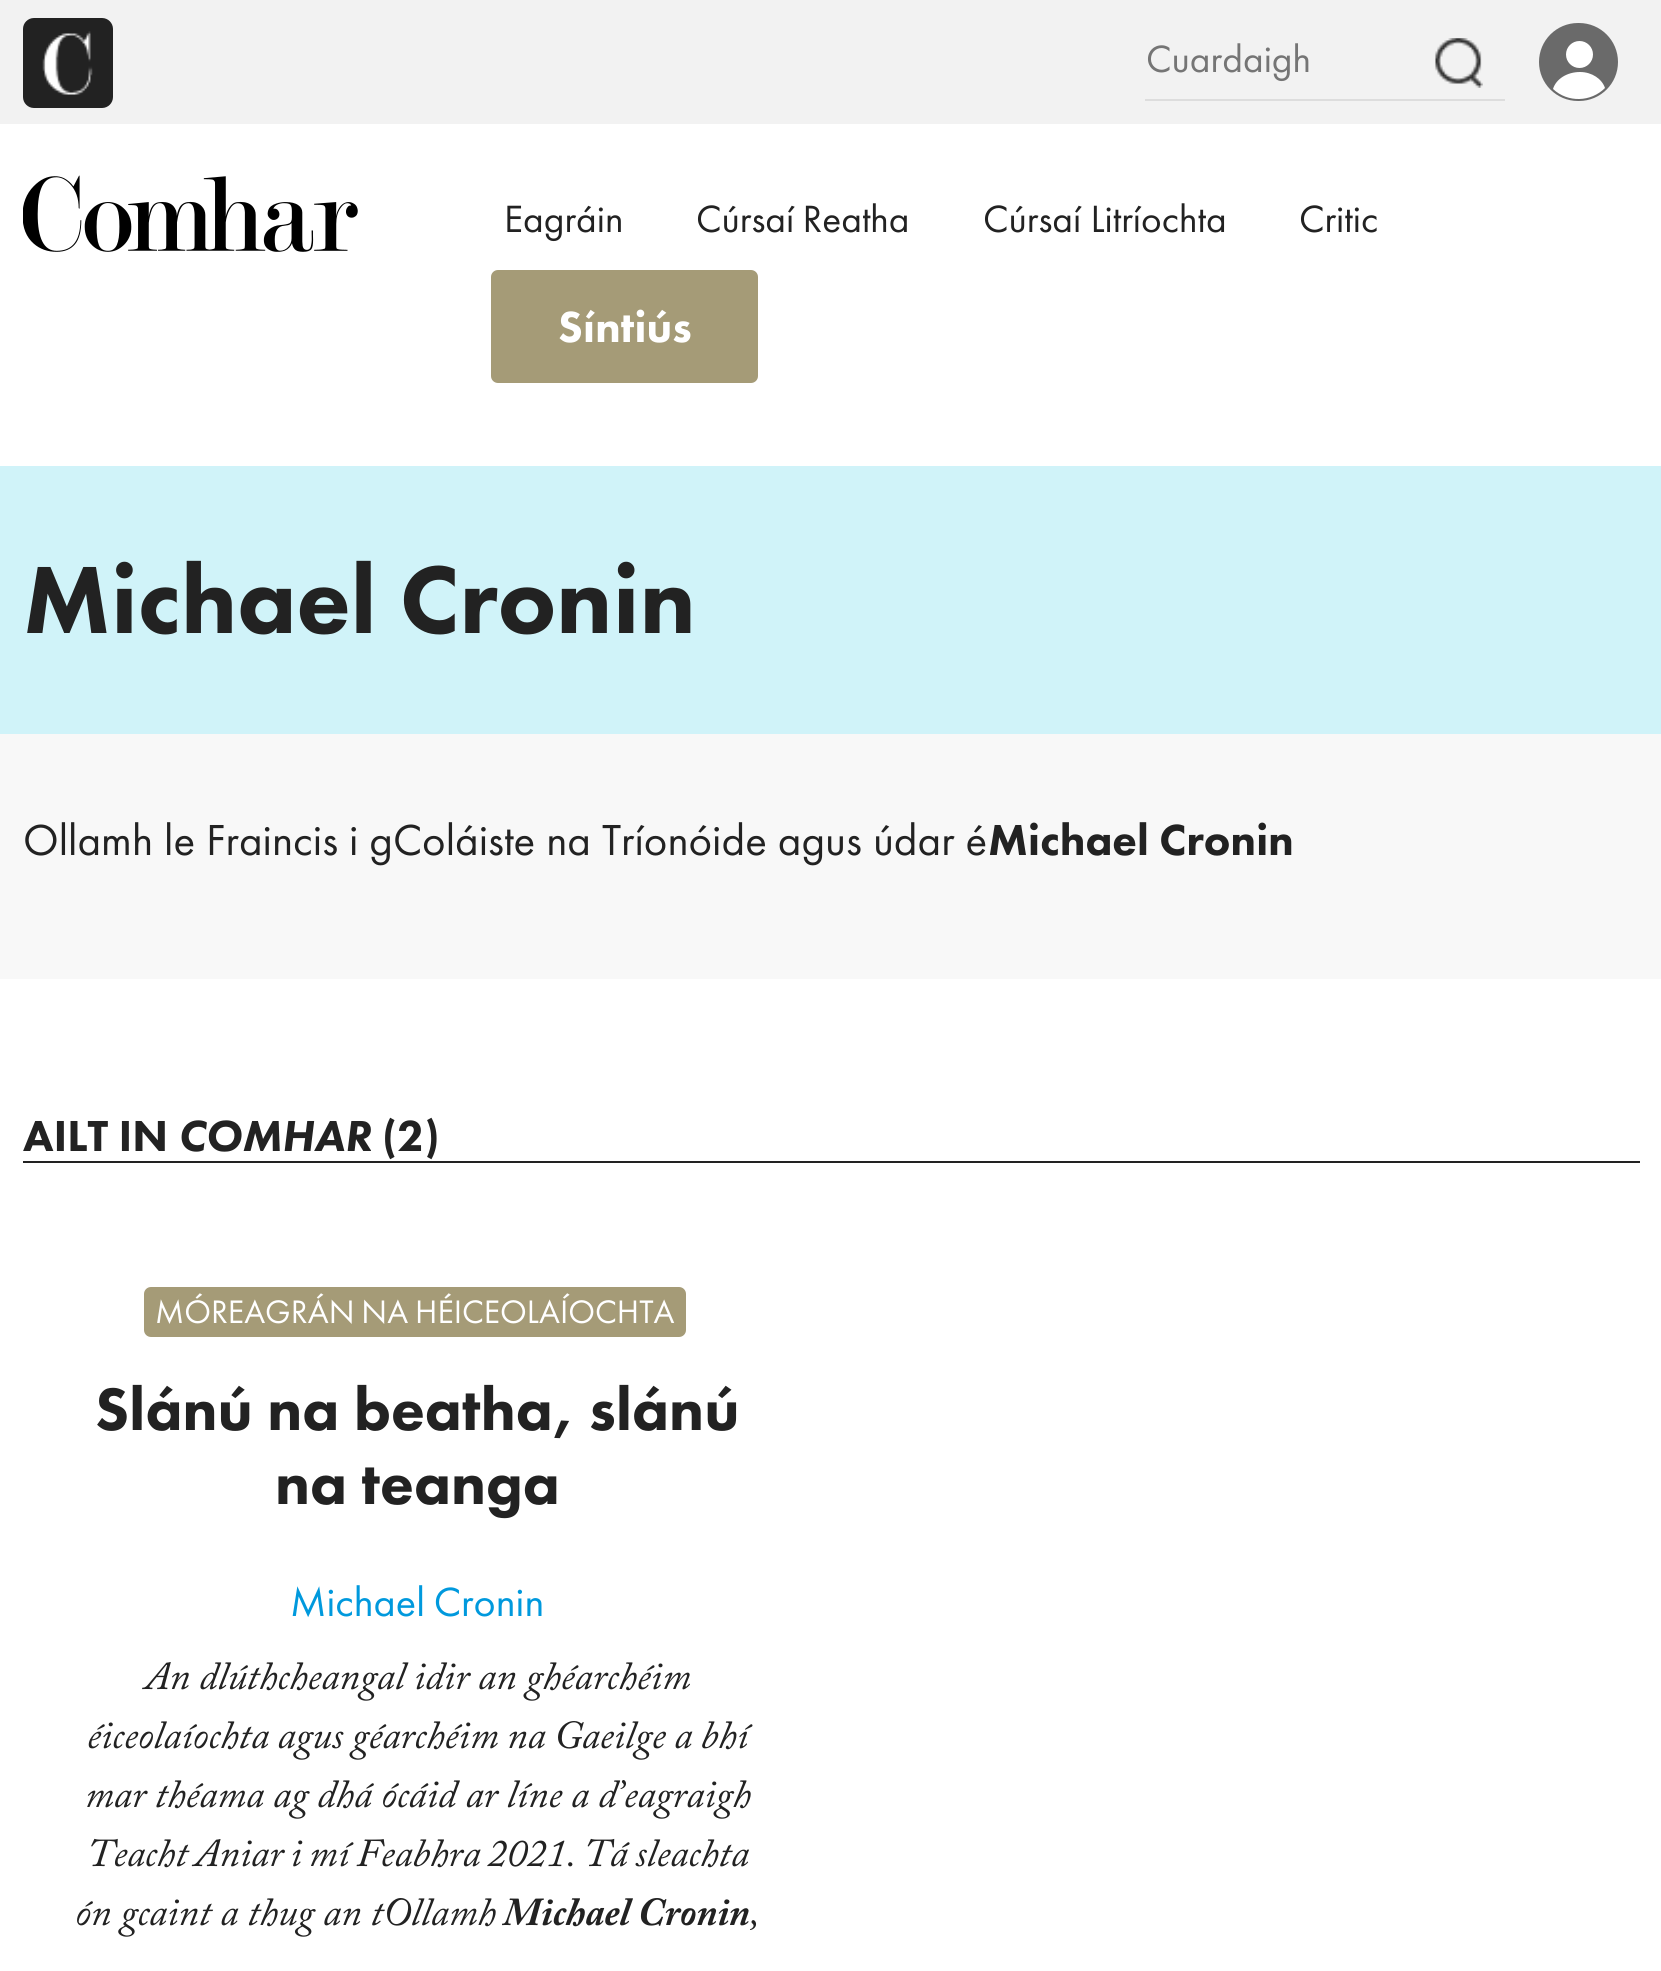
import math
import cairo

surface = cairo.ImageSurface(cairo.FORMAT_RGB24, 1661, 1971)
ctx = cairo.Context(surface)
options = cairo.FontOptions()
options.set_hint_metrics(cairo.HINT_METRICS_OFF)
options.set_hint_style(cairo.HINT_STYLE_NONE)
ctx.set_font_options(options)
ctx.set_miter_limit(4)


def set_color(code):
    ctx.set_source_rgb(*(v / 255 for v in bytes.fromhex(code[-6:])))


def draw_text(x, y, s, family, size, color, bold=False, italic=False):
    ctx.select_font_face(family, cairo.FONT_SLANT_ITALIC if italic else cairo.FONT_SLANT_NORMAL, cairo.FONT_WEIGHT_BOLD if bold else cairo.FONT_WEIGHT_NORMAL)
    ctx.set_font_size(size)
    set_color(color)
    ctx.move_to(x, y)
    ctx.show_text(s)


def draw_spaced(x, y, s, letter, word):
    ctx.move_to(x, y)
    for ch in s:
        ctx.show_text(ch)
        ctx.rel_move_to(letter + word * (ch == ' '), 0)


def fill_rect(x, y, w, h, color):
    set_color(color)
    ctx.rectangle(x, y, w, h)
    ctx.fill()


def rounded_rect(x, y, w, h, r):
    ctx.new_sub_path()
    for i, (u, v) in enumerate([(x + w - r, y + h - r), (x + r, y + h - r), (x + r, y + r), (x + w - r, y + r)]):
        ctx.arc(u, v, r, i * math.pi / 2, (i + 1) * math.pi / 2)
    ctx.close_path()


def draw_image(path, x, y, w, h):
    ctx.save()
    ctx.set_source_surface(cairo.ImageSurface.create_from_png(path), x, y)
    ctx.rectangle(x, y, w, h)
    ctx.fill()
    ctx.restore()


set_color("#ffffff")
ctx.paint()
fill_rect(0, 0, 1661, 124, "#f2f2f2")
set_color("#222222")
rounded_rect(23, 18, 90, 90, 11)
ctx.fill()
draw_image("assets/img1.png", 42, 31, 51, 64)
draw_text(1146, 72, "Cuardaigh", "Futura PT", 39.4, "#757575")
draw_image("assets/img2.png", 1435, 38, 48, 50)
fill_rect(1145, 99, 360, 2, "#dddddd")
set_color("#6a6a6a")
rounded_rect(1540, 24, 77, 76, 38)
ctx.fill_preserve()
ctx.stroke()
set_color("#ffffff")
ctx.arc(1579.5, 54.5, 13.5, 0, 2 * math.pi)
ctx.fill()
ctx.new_path()
ctx.move_to(1580, 72)
ctx.curve_to(1592, 72, 1602, 79, 1605, 88)
ctx.curve_to(1591, 102, 1568, 103, 1553, 89)
ctx.curve_to(1556, 79, 1567, 72, 1580, 72)
ctx.close_path()
ctx.fill()
draw_image("assets/img3.png", 23, 175, 335, 77)
draw_text(504, 232, "Eagráin", "Futura PT", 39.4, "#222222")
draw_spaced(696, 232, "Cúrsaí Reatha", 0, -1)
draw_text(983, 232, "Cúrsaí Litríochta", "Futura PT", 39.4, "#222222")
draw_text(1299, 232, "Critic", "Futura PT", 39.4, "#222222")
set_color("#a59b77")
rounded_rect(491, 270, 267, 113, 7)
ctx.fill()
draw_text(558, 342, "Síntiús", "Futura PT Black", 45, "#ffffff")
fill_rect(0, 466, 1661, 268, "#d0f3f9")
draw_text(23, 633, "Michael Cronin", "Futura PT Black", 99, "#222222")
fill_rect(0, 734, 1661, 245, "#f8f8f8")
ctx.select_font_face("Futura PT")
ctx.set_font_size(45)
set_color("#222222")
draw_spaced(23, 855, "Ollamh le Fraincis i gColáiste na Tríonóide agus údar é", 0, 0.5)
draw_text(988, 855, "Michael Cronin", "Futura PT Black", 45, "#222222")
fill_rect(23, 1161, 1617, 2, "#222222")
draw_text(23, 1151, "AILT IN", "Futura PT Black", 45, "#222222")
draw_text(178, 1151, "COMHAR", "Futura PT Black", 45, "#222222", italic=True)
draw_text(382, 1151, "(2)", "Futura PT Black", 45, "#222222")
set_color("#a59b77")
rounded_rect(144, 1287, 542, 50, 7)
ctx.fill()
ctx.select_font_face("Futura PT")
ctx.set_font_size(33.75)
set_color("#ffffff")
draw_spaced(155, 1323, "MÓREAGRÁN NA HÉICEOLAÍOCHTA", 0, -1)
draw_text(95, 1430, "Slánú na beatha, slánú", "Futura PT Black", 61.9, "#222222")
draw_text(275, 1504, "na teanga", "Futura PT Black", 61.9, "#222222")
ctx.select_font_face("Futura PT")
ctx.set_font_size(42.25)
set_color("#0099dd")
draw_spaced(290, 1616, "Michael Cronin", 0, -1)
draw_text(145, 1689, "An dlúthcheangal idir an ghéarchéim", "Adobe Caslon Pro", 39.4, "#222222", italic=True)
draw_spaced(87, 1748, "éiceolaíochta agus géarchéim na Gaeilge a bhí", 0, -0.5)
draw_text(85, 1807, "mar théama ag dhá ócáid ar líne a d’eagraigh", "Adobe Caslon Pro", 39.4, "#222222", italic=True)
draw_spaced(87, 1866, "Teacht Aniar i mí Feabhra 2021. Tá sleachta", 0, -1.75)
draw_text(75, 1925, "ón gcaint a thug an tOllamh", "Adobe Caslon Pro", 39.4, "#222222", italic=True)
draw_text(503, 1925, "Michael Cronin", "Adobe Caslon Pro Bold", 39.4, "#222222", bold=True, italic=True)
draw_text(750, 1925, ",", "Adobe Caslon Pro", 39.4, "#222222", italic=True)
surface.write_to_png("output.png")
